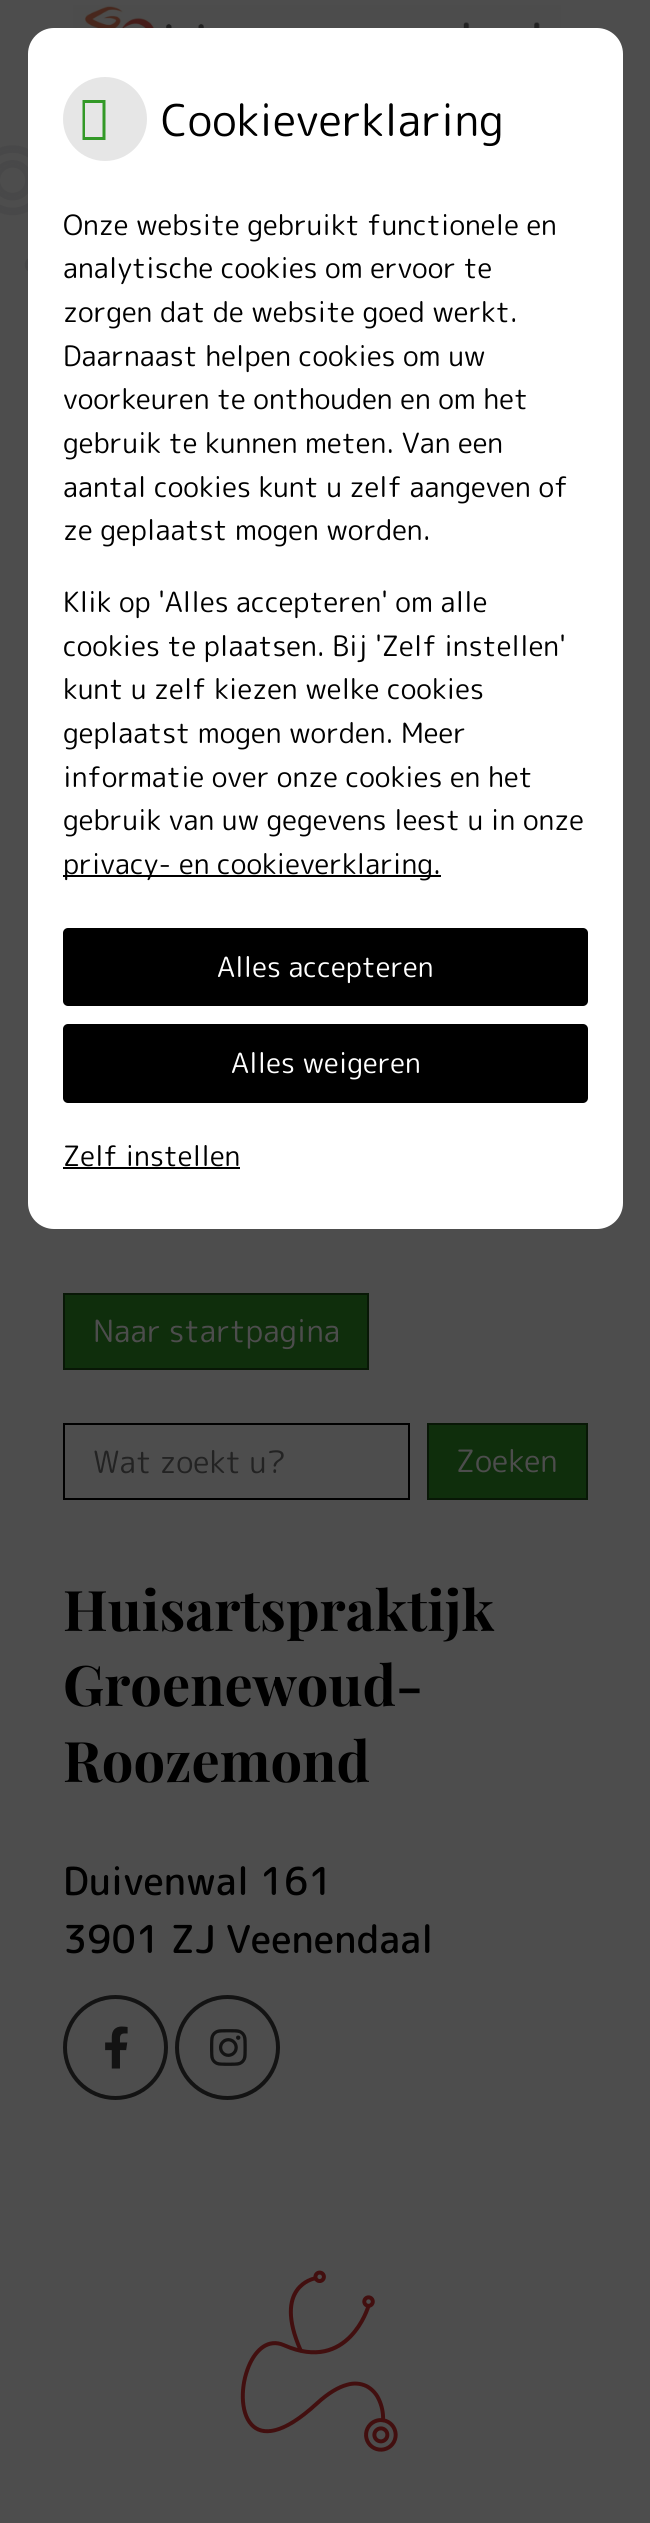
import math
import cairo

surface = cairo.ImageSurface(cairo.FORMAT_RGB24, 650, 2523)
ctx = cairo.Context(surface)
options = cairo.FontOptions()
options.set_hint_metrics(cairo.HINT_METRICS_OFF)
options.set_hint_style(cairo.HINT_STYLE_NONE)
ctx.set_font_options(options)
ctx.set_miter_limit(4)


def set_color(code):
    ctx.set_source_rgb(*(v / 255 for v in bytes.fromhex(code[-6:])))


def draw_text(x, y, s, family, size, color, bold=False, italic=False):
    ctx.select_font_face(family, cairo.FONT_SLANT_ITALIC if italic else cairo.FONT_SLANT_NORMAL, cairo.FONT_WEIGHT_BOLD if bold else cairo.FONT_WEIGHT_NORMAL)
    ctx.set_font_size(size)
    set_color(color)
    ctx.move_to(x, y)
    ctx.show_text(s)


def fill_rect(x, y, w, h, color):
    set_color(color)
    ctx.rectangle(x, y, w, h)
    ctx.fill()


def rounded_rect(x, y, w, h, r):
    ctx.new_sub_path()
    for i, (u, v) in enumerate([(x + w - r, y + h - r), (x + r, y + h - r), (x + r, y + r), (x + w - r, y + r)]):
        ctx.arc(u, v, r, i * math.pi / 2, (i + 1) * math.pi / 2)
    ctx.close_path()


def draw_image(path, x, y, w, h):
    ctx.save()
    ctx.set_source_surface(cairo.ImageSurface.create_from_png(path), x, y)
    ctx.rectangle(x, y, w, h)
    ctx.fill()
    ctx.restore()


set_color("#4d4d4d")
ctx.paint()
draw_image("assets/img1.png", 73, 5, 488, 23)
set_color("#ffffff")
rounded_rect(28, 28, 595, 1201, 26)
ctx.fill()
set_color("#e6e6e6")
ctx.arc(105, 119, 42, 0, 2 * math.pi)
ctx.fill()
set_color("#339927")
ctx.new_path()
ctx.move_to(82.5, 140)
ctx.line_to(82.5, 100)
ctx.line_to(105.5, 100)
ctx.line_to(105.5, 140)
ctx.close_path()
ctx.move_to(85, 137)
ctx.line_to(102.5, 137)
ctx.line_to(102.5, 103)
ctx.line_to(85, 103)
ctx.close_path()
ctx.fill()
draw_text(161, 136, "Cookieverklaring", "Rounded Mplus 1c", 43.75, "#000000")
draw_text(63, 235, "Onze website gebruikt functionele en", "Rounded Mplus 1c", 28, "#000000")
draw_text(63, 278, "analytische cookies om ervoor te", "Rounded Mplus 1c", 28, "#000000")
draw_text(63, 322, "zorgen dat de website goed werkt.", "Rounded Mplus 1c", 28, "#000000")
draw_text(63, 366, "Daarnaast helpen cookies om uw", "Rounded Mplus 1c", 28, "#000000")
draw_text(63, 409, "voorkeuren te onthouden en om het", "Rounded Mplus 1c", 28, "#000000")
draw_text(63, 453, "gebruik te kunnen meten. Van een", "Rounded Mplus 1c", 28, "#000000")
draw_text(63, 497, "aantal cookies kunt u zelf aangeven of", "Rounded Mplus 1c", 28, "#000000")
draw_text(63, 540, "ze geplaatst mogen worden.", "Rounded Mplus 1c", 28, "#000000")
draw_text(63, 612, "Klik op 'Alles accepteren' om alle", "Rounded Mplus 1c", 28, "#000000")
draw_text(63, 656, "cookies te plaatsen. Bij 'Zelf instellen'", "Rounded Mplus 1c", 28, "#000000")
draw_text(63, 699, "kunt u zelf kiezen welke cookies", "Rounded Mplus 1c", 28, "#000000")
draw_text(63, 743, "geplaatst mogen worden. Meer", "Rounded Mplus 1c", 28, "#000000")
draw_text(63, 787, "informatie over onze cookies en het", "Rounded Mplus 1c", 28, "#000000")
draw_text(63, 830, "gebruik van uw gegevens leest u in onze", "Rounded Mplus 1c", 28, "#000000")
fill_rect(63, 875, 378, 2, "#000000")
draw_text(63, 874, "privacy- en cookieverklaring.", "Rounded Mplus 1c", 28, "#000000")
rounded_rect(63, 928, 525, 78, 5)
ctx.fill()
draw_text(217, 977, "Alles accepteren", "Rounded Mplus 1c", 28, "#ffffff")
set_color("#000000")
rounded_rect(63, 1024, 525, 79, 5)
ctx.fill()
draw_text(231, 1073, "Alles weigeren", "Rounded Mplus 1c", 28, "#ffffff")
draw_text(63, 1166, "Zelf instellen", "Rounded Mplus 1c", 28, "#000000")
fill_rect(63, 1167, 177, 2, "#000000")
draw_image("assets/img2.png", 0, 145, 28, 126)
set_color("#0f2e0c")
ctx.rectangle(64, 1294, 304, 75)
ctx.fill_preserve()
set_color("#081706")
ctx.stroke()
draw_text(93, 1342, "Naar startpagina", "Rounded Mplus 1c", 30.75, "#4d4d4d")
ctx.rectangle(64, 1424, 345, 75)
set_color("#000000")
ctx.stroke()
draw_text(93, 1473, "Wat zoekt u?", "Rounded Mplus 1c", 30.75, "#232323")
set_color("#0f2e0c")
ctx.rectangle(428, 1424, 159, 75)
ctx.fill_preserve()
set_color("#081706")
ctx.stroke()
draw_text(456, 1472, "Zoeken", "Rounded Mplus 1c", 30.75, "#4d4d4d")
draw_text(63, 1631, "Huisartspraktijk", "Playfair Display", 56, "#000000", bold=True)
draw_text(63, 1706, "Groenewoud-", "Playfair Display", 56, "#000000", bold=True)
draw_text(63, 1782, "Roozemond", "Playfair Display", 56, "#000000", bold=True)
draw_text(63, 1895, "Duivenwal 161", "Rounded Mplus 1c Medium", 38.5, "#000000")
draw_text(63, 1953, "3901 ZJ Veenendaal", "Rounded Mplus 1c Medium", 38.5, "#000000")
ctx.new_path()
ctx.arc(115.5, 2047.5, 50.5, 0, 2 * math.pi)
set_color("#131313")
ctx.set_line_width(4)
ctx.stroke()
draw_image("assets/img3.png", 105, 2026, 23, 43)
ctx.arc(227.5, 2047.5, 50.5, 0, 2 * math.pi)
ctx.stroke()
draw_image("assets/img4.png", 210, 2029, 37, 37)
draw_image("assets/img5.png", 240, 2270, 158, 182)
surface.write_to_png("output.png")
